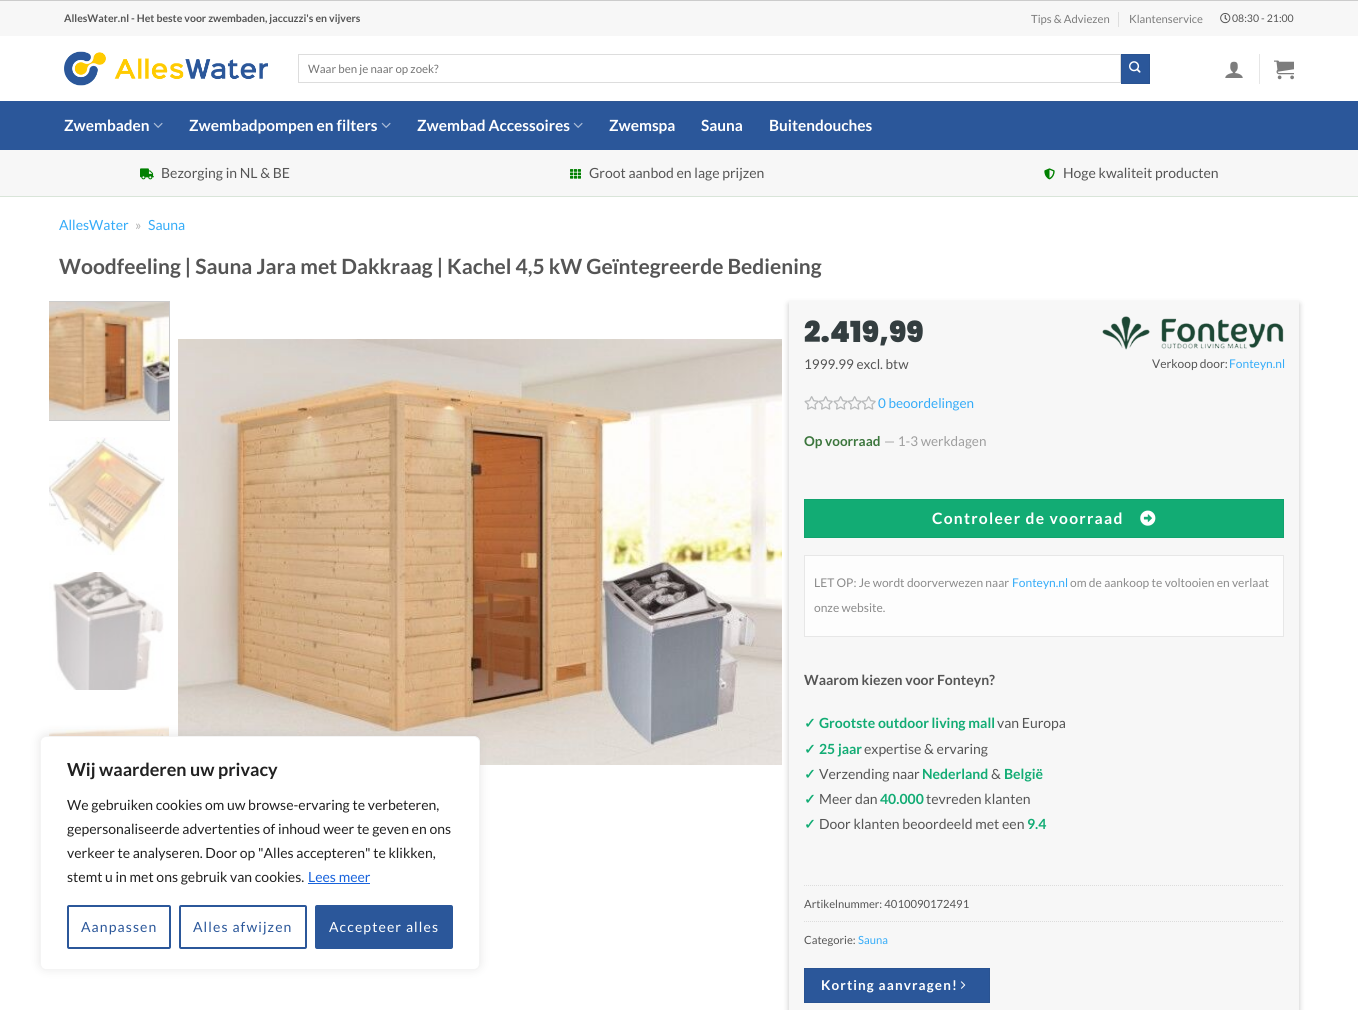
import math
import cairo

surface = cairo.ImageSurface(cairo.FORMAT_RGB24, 1358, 1010)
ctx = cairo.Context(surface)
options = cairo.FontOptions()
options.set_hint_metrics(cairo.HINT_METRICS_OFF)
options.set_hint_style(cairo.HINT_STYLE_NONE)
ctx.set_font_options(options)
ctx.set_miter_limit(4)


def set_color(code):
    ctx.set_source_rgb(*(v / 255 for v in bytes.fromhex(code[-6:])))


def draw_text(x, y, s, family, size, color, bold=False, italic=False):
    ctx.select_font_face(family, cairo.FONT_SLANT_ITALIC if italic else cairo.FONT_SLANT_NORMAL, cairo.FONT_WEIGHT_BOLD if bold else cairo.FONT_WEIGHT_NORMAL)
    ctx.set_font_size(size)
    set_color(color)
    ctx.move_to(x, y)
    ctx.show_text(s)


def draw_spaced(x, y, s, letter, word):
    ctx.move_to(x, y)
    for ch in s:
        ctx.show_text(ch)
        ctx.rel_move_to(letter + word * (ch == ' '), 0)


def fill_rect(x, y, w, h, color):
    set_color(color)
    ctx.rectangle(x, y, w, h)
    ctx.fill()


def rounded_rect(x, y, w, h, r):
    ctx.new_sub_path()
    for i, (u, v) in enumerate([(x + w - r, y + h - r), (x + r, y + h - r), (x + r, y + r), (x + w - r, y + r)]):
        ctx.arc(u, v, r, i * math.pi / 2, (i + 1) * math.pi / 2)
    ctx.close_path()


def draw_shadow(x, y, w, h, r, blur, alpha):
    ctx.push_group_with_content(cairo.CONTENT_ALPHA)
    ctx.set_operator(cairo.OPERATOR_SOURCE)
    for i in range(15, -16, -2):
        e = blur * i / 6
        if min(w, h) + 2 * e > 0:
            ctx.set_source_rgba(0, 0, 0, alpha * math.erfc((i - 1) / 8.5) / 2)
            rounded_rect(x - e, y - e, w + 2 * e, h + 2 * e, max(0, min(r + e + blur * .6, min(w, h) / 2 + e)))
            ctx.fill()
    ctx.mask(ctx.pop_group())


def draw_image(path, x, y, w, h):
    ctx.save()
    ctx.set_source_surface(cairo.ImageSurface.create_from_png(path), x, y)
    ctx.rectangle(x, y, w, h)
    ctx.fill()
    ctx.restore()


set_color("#cccccc")
ctx.paint()
fill_rect(0, 36, 1358, 974, "#ffffff")
fill_rect(0, 1, 1358, 35, "#f7f7f7")
draw_text(64, 22, "AllesWater.nl - Het beste voor zwembaden, jaccuzzi's en vijvers", "Lato", 10.5, "#555555", bold=True)
draw_text(1031, 23, "Tips & Adviezen", "Lato", 11.25, "#7c7c7c")
fill_rect(1118, 12, 1, 15, "#dedede")
draw_text(1129, 23, "Klantenservice", "Lato", 11.25, "#7c7c7c")
draw_image("assets/img1.png", 1220, 13, 11, 11)
draw_text(1232, 22, "08:30 - 21:00", "Lato", 10.5, "#555555")
draw_image("assets/img2.png", 64, 51, 204, 35)
ctx.rectangle(298.5, 54.5, 822, 28)
set_color("#dddddd")
ctx.set_line_width(1)
ctx.stroke()
draw_text(308, 73, "Waar ben je naar op zoek?", "Lato", 11.5, "#757575")
set_color("#2b579a")
ctx.rectangle(1121.5, 54.5, 28, 29)
ctx.fill_preserve()
set_color("#295392")
ctx.stroke()
draw_image("assets/img3.png", 1129, 61, 12, 12)
draw_image("assets/img4.png", 1225, 61, 18, 17)
fill_rect(1259, 54, 1, 30, "#e6e6e6")
draw_image("assets/img5.png", 1274, 60, 20, 20)
fill_rect(0, 101, 1358, 49, "#2b579a")
fill_rect(64, 101, 1230, 1, "#2f5793")
draw_text(64, 131, "Zwembaden", "Lato", 15.4, "#ffffff", bold=True)
draw_image("assets/img6.png", 153, 122, 10, 6)
draw_text(189, 131, "Zwembadpompen en filters", "Lato", 15.4, "#ffffff", bold=True)
draw_image("assets/img6.png", 381, 122, 10, 6)
draw_text(417, 131, "Zwembad Accessoires", "Lato", 15.4, "#ffffff", bold=True)
draw_image("assets/img6.png", 573, 122, 10, 6)
draw_text(609, 131, "Zwemspa", "Lato", 15.4, "#ffffff", bold=True)
draw_text(701, 131, "Sauna", "Lato", 15.4, "#ffffff", bold=True)
draw_text(769, 131, "Buitendouches", "Lato", 15.4, "#ffffff", bold=True)
fill_rect(0, 150, 1358, 46, "#f7f7f7")
fill_rect(0, 196, 1358, 1, "#d9e5d9")
draw_image("assets/img7.png", 140, 168, 14, 12)
draw_text(161, 178, "Bezorging in NL & BE", "Lato", 14, "#555555")
draw_image("assets/img8.png", 570, 169, 11, 10)
draw_text(589, 178, "Groot aanbod en lage prijzen", "Lato", 14, "#555555")
draw_image("assets/img9.png", 1044, 168, 11, 12)
draw_text(1063, 178, "Hoge kwaliteit producten", "Lato", 14, "#555555")
draw_text(59, 230, "AllesWater", "Lato", 14, "#35acf8")
draw_text(135, 230, "»", "Lato", 14, "#b2b2b2")
draw_text(148, 230, "Sauna", "Lato", 14, "#35acf8")
draw_text(59, 274, "Woodfeeling | Sauna Jara met Dakkraag | Kachel 4,5 kW Geïntegreerde Bediening", "Lato", 21, "#555555", bold=True)
ctx.save()
ctx.rectangle(49, 301, 123, 510)
ctx.clip()
ctx.rectangle(45.5, 301.5, 124, 119)
set_color("#cccccc")
ctx.stroke()
ctx.restore()
draw_image("assets/img10.png", 49, 302, 120, 118)
draw_image("assets/img11.png", 49, 437, 116, 118)
draw_image("assets/img12.png", 49, 572, 115, 118)
draw_image("assets/img13.png", 49, 726, 120, 10)
draw_image("assets/img14.png", 178, 339, 604, 426)
set_color("#000000")
draw_shadow(789, 304, 510, 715, 0, 3, 0.23)
fill_rect(789, 301, 510, 709, "#f7f7f7")
draw_text(804, 342, "2.419,99", "Poppins Black", 29, "#343e40")
draw_text(804, 369, "1999.99 excl. btw", "Lato", 13.5, "#555555")
draw_image("assets/img15.png", 804, 396, 15, 14)
draw_image("assets/img16.png", 818, 396, 15, 14)
draw_image("assets/img15.png", 833, 396, 15, 14)
draw_image("assets/img16.png", 847, 396, 15, 14)
draw_image("assets/img16.png", 861, 396, 15, 14)
draw_text(878, 408, "0 beoordelingen", "Lato", 13.5, "#35acf8")
draw_text(804, 446, "Op voorraad", "Lato", 13.5, "#3c763d", bold=True)
draw_text(884, 446, "— 1-3 werkdagen", "Lato", 13.5, "#9e9e9e")
draw_image("assets/img17.png", 1102, 316, 182, 34)
draw_text(1152, 368, "Verkoop door:", "Lato", 12, "#555555")
draw_text(1229, 368, "Fonteyn.nl", "Lato", 12, "#35acf8")
set_color("#12ac74")
ctx.rectangle(804.5, 499.5, 479, 38)
ctx.fill_preserve()
set_color("#11a36e")
ctx.stroke()
ctx.select_font_face("Lato", cairo.FONT_SLANT_NORMAL, cairo.FONT_WEIGHT_BOLD)
ctx.set_font_size(15.6)
set_color("#ffffff")
draw_spaced(932, 524, "Controleer de voorraad", 1.25, 0)
draw_image("assets/img18.png", 1140, 510, 16, 16)
fill_rect(805, 556, 478, 80, "#fdfdfd")
ctx.rectangle(804.5, 555.5, 479, 81)
set_color("#e7e7e7")
ctx.stroke()
draw_text(814, 587, "LET OP: Je wordt doorverwezen naar", "Lato", 12, "#8b8b8b")
draw_text(1012, 587, "Fonteyn.nl", "Lato", 12, "#35acf8")
draw_text(1070, 587, "om de aankoop te voltooien en verlaat", "Lato", 12, "#8b8b8b")
draw_text(814, 612, "onze website.", "Lato", 12, "#8b8b8b")
draw_text(804, 685, "Waarom kiezen voor Fonteyn?", "Lato", 14, "#555555", bold=True)
draw_text(804, 728, "✓", "DejaVu Sans", 14, "#12ac74", bold=True)
draw_text(819, 728, "Grootste outdoor living mall", "Lato", 14, "#12ac74", bold=True)
draw_text(997, 728, "van Europa", "Lato", 14, "#555555")
draw_text(804, 754, "✓", "DejaVu Sans", 14, "#12ac74", bold=True)
draw_text(819, 754, "25 jaar", "Lato", 14, "#12ac74", bold=True)
draw_text(864, 754, "expertise & ervaring", "Lato", 14, "#555555")
draw_text(804, 779, "✓", "DejaVu Sans", 14, "#12ac74", bold=True)
draw_text(819, 779, "Verzending naar", "Lato", 14, "#555555")
draw_text(922, 779, "Nederland", "Lato", 14, "#12ac74", bold=True)
draw_text(991, 779, "&", "Lato", 14, "#555555")
draw_text(1004, 779, "België", "Lato", 14, "#12ac74", bold=True)
draw_text(804, 804, "✓", "DejaVu Sans", 14, "#12ac74", bold=True)
draw_text(819, 804, "Meer dan", "Lato", 14, "#555555")
draw_text(880, 804, "40.000", "Lato", 14, "#12ac74", bold=True)
draw_text(926, 804, "tevreden klanten", "Lato", 14, "#555555")
draw_text(804, 829, "✓", "DejaVu Sans", 14, "#12ac74", bold=True)
draw_text(819, 829, "Door klanten beoordeeld met een", "Lato", 14, "#555555")
draw_text(1027, 829, "9.4", "Lato", 14, "#12ac74", bold=True)
ctx.new_path()
ctx.move_to(804, 885.5)
ctx.line_to(1284, 885.5)
set_color("#dddddd")
ctx.set_dash([1, 1])
ctx.stroke()
draw_text(804, 908, "Artikelnummer: 4010090172491", "Lato", 11.25, "#555555")
ctx.new_path()
ctx.move_to(804, 921.5)
ctx.line_to(1284, 921.5)
set_color("#dddddd")
ctx.stroke()
draw_text(804, 944, "Categorie:", "Lato", 11.25, "#555555")
draw_text(858, 944, "Sauna", "Lato", 11.25, "#35acf8")
set_color("#2b579a")
ctx.rectangle(804.5, 968.5, 185, 34)
ctx.fill_preserve()
set_color("#295392")
ctx.set_dash([])
ctx.stroke()
ctx.select_font_face("Lato", cairo.FONT_SLANT_NORMAL, cairo.FONT_WEIGHT_BOLD)
ctx.set_font_size(13.5)
set_color("#ffffff")
draw_spaced(821, 990, "Korting aanvragen!", 1.1, 0)
draw_image("assets/img19.png", 960, 981, 6, 8)
set_color("#acabab")
draw_shadow(40, 735, 440, 234, 6, 5, 0.3)
set_color("#ffffff")
rounded_rect(40.5, 736.5, 439, 233, 5.5)
ctx.fill_preserve()
set_color("#f4f4f4")
ctx.stroke()
draw_text(67, 776, "Wij waarderen uw privacy", "Lato", 18, "#212121", bold=True)
draw_text(67, 810, "We gebruiken cookies om uw browse-ervaring te verbeteren,", "Lato", 14, "#212121")
draw_text(67, 834, "gepersonaliseerde advertenties of inhoud weer te geven en ons", "Lato", 14, "#212121")
draw_text(67, 858, "verkeer te analyseren. Door op \"Alles accepteren\" te klikken,", "Lato", 14, "#212121")
draw_text(67, 882, "stemt u in met ons gebruik van cookies.", "Lato", 14, "#212121")
draw_text(308, 882, "Lees meer", "Lato", 14, "#1863dc")
fill_rect(308, 883, 62, 1, "#1863dc")
rounded_rect(68, 906, 102, 42, 1)
set_color("#2b579a")
ctx.set_line_width(2)
ctx.stroke()
draw_spaced(81, 932, "Aanpassen", 1.1, 0)
rounded_rect(180, 906, 126, 42, 1)
ctx.stroke()
draw_spaced(193, 932, "Alles afwijzen", 1.1, 0)
rounded_rect(316, 906, 136, 42, 1)
ctx.fill_preserve()
ctx.stroke()
set_color("#ffffff")
draw_spaced(329, 932, "Accepteer alles", 1.1, 0)
surface.write_to_png("output.png")
